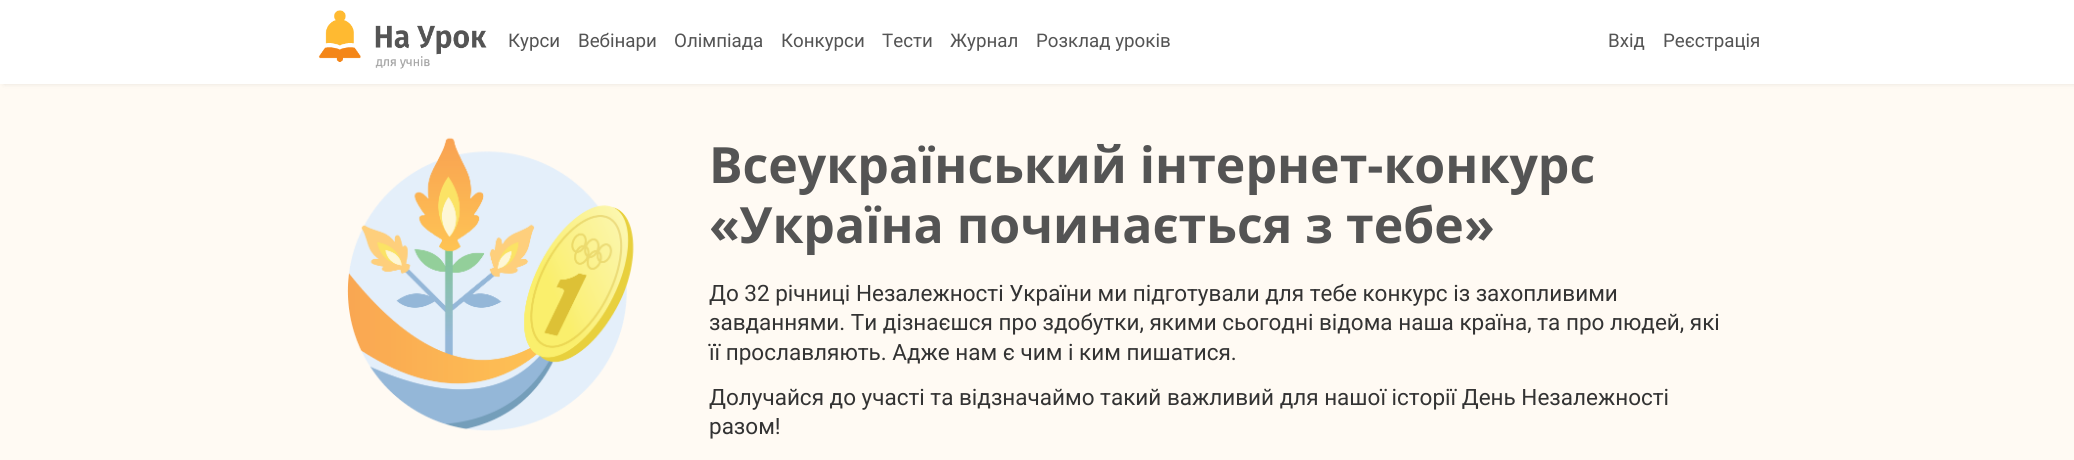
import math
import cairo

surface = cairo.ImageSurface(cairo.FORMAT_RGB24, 2074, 460)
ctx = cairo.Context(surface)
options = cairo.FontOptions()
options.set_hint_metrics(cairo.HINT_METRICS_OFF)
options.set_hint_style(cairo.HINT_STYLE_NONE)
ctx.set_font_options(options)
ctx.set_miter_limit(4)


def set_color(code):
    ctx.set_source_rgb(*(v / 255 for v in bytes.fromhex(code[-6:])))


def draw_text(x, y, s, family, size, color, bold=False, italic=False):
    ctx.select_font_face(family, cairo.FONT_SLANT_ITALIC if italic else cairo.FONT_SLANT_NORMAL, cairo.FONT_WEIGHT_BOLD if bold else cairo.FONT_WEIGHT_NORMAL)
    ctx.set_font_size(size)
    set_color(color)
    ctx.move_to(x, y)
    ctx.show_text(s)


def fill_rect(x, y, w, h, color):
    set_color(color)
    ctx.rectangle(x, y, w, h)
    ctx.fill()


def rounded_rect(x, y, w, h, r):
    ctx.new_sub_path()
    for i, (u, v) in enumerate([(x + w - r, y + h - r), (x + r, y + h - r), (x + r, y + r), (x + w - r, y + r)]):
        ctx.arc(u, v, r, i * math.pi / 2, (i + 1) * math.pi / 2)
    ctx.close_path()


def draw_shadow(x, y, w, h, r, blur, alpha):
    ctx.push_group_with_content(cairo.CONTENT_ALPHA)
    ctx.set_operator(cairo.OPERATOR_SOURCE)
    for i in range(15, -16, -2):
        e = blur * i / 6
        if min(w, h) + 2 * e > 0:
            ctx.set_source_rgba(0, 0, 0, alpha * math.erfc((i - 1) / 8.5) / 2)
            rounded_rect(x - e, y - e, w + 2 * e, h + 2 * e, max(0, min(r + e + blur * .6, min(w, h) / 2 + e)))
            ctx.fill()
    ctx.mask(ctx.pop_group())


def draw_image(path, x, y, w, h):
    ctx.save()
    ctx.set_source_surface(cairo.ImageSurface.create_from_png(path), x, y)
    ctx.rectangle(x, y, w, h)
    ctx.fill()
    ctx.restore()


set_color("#fffaf3")
ctx.paint()
set_color("#000000")
draw_shadow(4, 0, 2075, 84, 0, 2.5, 0.1)
fill_rect(0, 0, 2074, 84, "#ffffff")
draw_image("assets/img1.png", 318, 10, 169, 59)
draw_text(508, 47, "Курси", "Roboto", 18.75, "#545454")
draw_text(578, 47, "Вебінари", "Roboto", 18.75, "#545454")
draw_text(674, 47, "Олімпіада", "Roboto", 18.75, "#545454")
draw_text(781, 47, "Конкурси", "Roboto", 18.75, "#545454")
draw_text(882, 47, "Тести", "Roboto", 18.75, "#545454")
draw_text(950, 47, "Журнал", "Roboto", 18.75, "#545454")
draw_text(1036, 47, "Розклад уроків", "Roboto", 18.75, "#545454")
draw_text(1608, 47, "Вхід", "Roboto", 18.75, "#545454")
draw_text(1663, 47, "Реєстрація", "Roboto", 18.75, "#545454")
draw_image("assets/img2.png", 347, 137, 287, 294)
draw_text(709, 183, "Всеукраїнський інтернет-конкурс", "Open Sans", 50, "#545454", bold=True)
draw_text(709, 243, "«Україна починається з тебе»", "Open Sans", 50, "#545454", bold=True)
draw_text(709, 301, "До 32 річниці Незалежності України ми підготували для тебе конкурс із захопливими", "Roboto", 22.5, "#333333")
draw_text(709, 330, "завданнями. Ти дізнаєшся про здобутки, якими сьогодні відома наша країна, та про людей, які", "Roboto", 22.5, "#333333")
draw_text(709, 360, "її прославляють. Адже нам є чим і ким пишатися.", "Roboto", 22.5, "#333333")
draw_text(709, 405, "Долучайся до участі та відзначаймо такий важливий для нашої історії День Незалежності", "Roboto", 22.5, "#333333")
draw_text(709, 434, "разом!", "Roboto", 22.5, "#333333")
surface.write_to_png("output.png")
